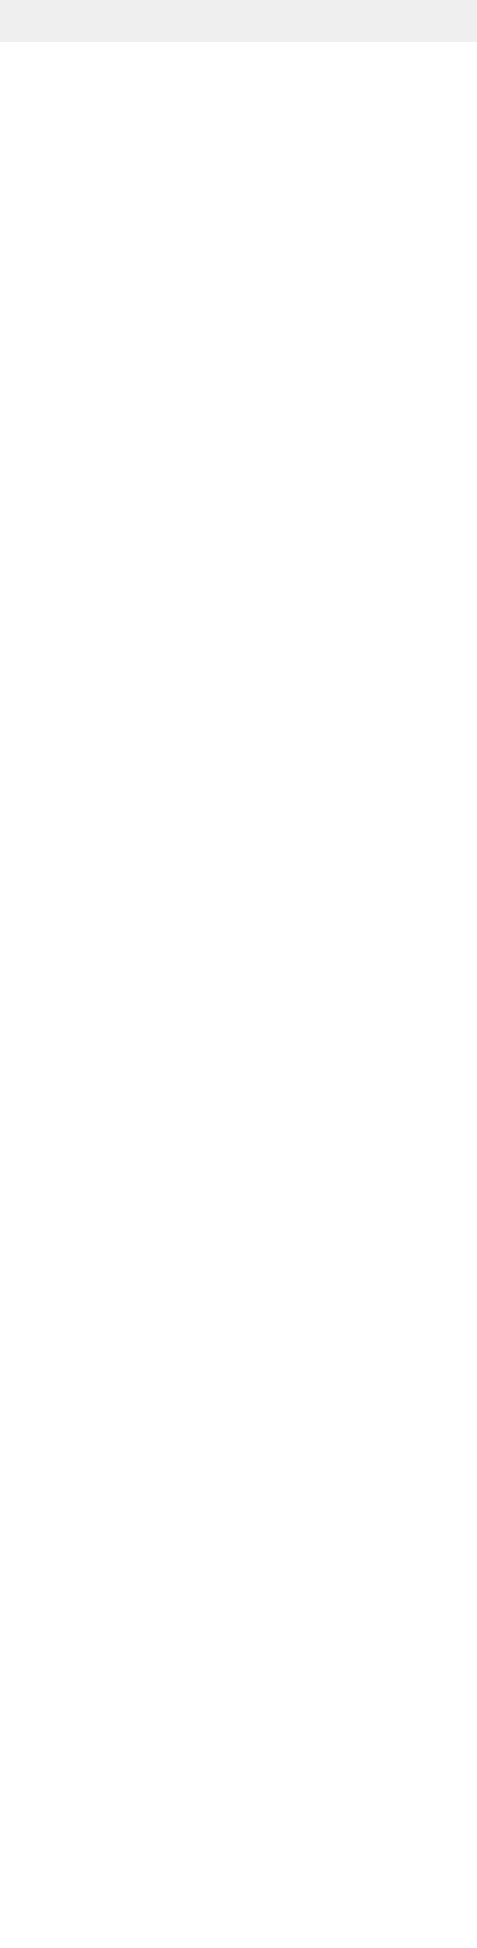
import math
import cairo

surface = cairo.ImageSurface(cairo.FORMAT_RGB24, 477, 1948)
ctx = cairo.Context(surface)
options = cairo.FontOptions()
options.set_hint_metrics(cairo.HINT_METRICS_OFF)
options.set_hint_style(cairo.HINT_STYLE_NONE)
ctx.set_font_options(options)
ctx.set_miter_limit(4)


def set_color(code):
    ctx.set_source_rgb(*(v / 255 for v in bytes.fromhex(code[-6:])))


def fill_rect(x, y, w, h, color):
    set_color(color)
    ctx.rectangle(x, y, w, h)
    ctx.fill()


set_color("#ffffff")
ctx.paint()
fill_rect(0, 0, 477, 42, "#efefef")
surface.write_to_png("output.png")
